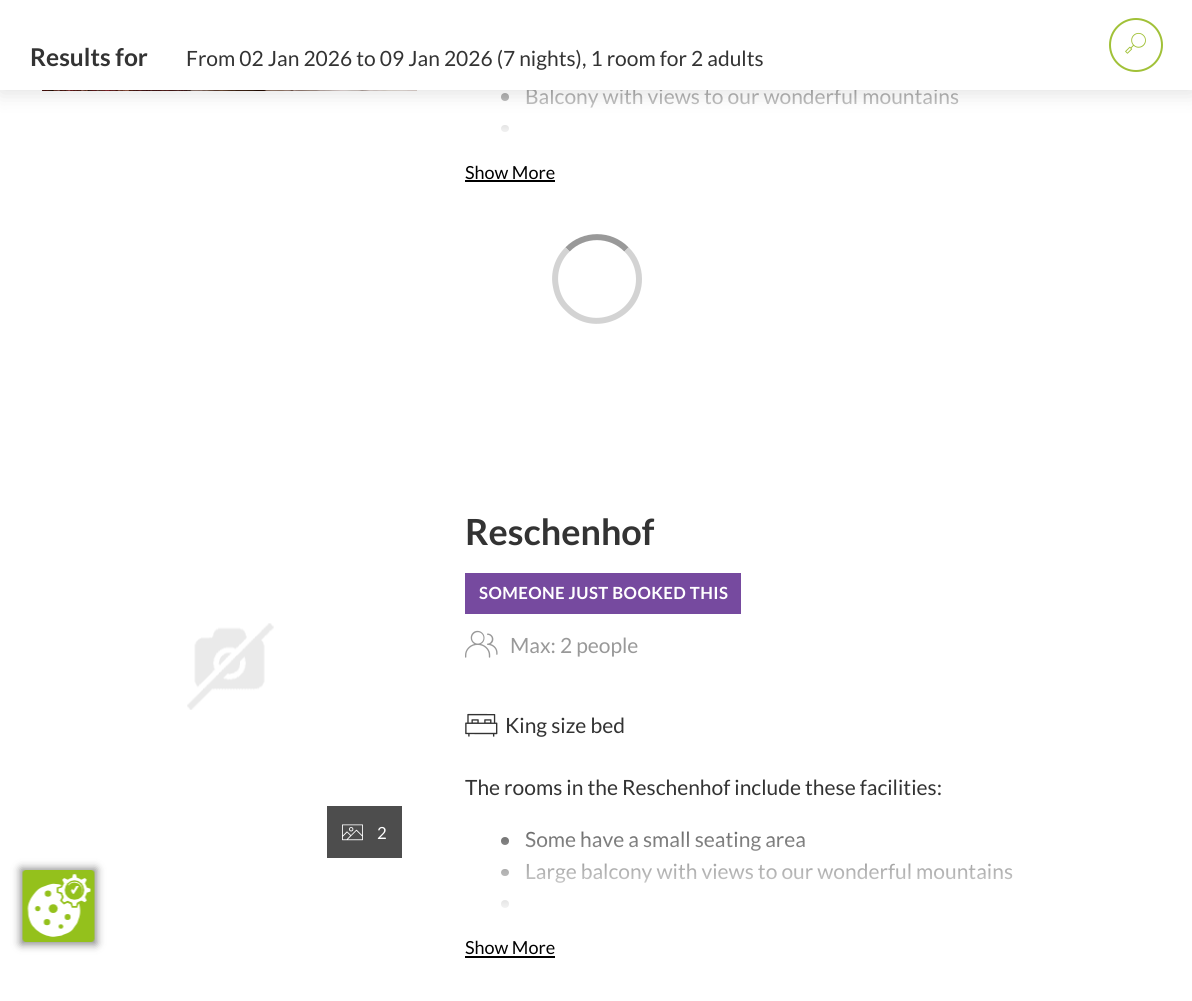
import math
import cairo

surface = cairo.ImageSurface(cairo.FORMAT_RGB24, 1192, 1001)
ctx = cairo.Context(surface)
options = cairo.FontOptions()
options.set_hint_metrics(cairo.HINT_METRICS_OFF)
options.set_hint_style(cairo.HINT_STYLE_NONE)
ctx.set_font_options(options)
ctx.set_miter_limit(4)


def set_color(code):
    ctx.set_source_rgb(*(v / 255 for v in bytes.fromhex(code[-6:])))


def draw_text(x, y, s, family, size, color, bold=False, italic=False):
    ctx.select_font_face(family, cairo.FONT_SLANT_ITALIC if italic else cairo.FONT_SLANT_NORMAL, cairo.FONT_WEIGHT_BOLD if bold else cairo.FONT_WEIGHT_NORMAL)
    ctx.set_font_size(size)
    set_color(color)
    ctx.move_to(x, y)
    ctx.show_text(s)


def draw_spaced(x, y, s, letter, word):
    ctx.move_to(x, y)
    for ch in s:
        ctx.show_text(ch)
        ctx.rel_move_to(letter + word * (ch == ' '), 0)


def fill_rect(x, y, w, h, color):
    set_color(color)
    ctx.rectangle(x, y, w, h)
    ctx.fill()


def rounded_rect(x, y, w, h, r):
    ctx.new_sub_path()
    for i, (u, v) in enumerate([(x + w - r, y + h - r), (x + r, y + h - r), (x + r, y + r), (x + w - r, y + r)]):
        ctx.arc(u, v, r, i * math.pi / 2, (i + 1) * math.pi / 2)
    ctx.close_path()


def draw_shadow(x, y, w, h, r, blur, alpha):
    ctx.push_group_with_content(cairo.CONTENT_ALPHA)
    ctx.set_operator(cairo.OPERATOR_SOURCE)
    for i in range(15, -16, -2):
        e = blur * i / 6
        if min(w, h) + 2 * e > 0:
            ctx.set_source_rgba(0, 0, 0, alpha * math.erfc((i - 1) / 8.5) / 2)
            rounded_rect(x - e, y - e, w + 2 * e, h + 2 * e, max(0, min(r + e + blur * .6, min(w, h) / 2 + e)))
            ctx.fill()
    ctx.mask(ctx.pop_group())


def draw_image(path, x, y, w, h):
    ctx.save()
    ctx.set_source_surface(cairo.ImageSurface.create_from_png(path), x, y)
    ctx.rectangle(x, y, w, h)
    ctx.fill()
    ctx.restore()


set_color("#ffffff")
ctx.paint()
draw_image("assets/img2.png", 42, 90, 375, 1)
set_color("#333333")
ctx.arc(505, 97, 4, 0, 2 * math.pi)
ctx.fill()
rounded_rect(501, 125, 8, 7, 3.5)
ctx.fill()
draw_text(525, 104, "Balcony with views to our wonderful mountains", "Lato", 21, "#333333")
gradient = cairo.LinearGradient(784, -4.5, 784, 140)
gradient.add_color_stop_rgba(0.2, 1, 1, 1, 0)
gradient.add_color_stop_rgba(1, 1, 1, 1, 1)
ctx.set_source(gradient)
ctx.rectangle(501, 90, 458, 42)
ctx.fill()
set_color("#000000")
draw_shadow(0, 3, 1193, 90, 0, 11, 0.12)
fill_rect(0, 0, 1192, 90, "#ffffff")
draw_text(30, 66, "Results for", "Lato", 24.5, "#333333", bold=True)
draw_text(186, 66, "From 02 Jan 2026 to 09 Jan 2026 (7 nights), 1 room for 2 adults", "Lato", 21, "#333333")
ctx.new_path()
ctx.arc(1136, 45, 26, 0, 2 * math.pi)
set_color("#a1c138")
ctx.stroke()
draw_image("assets/img1.png", 1125, 32, 21, 22)
draw_text(465, 179, "Show More", "Lato", 18, "#000000")
fill_rect(465, 180, 90, 2, "#000000")
ctx.new_path()
ctx.move_to(567.5, 249.5)
ctx.curve_to(583.5, 233, 610.5, 233, 626.5, 249.5)
set_color("#999999")
ctx.set_line_width(6)
ctx.stroke()
ctx.new_path()
ctx.move_to(626.5, 249.5)
ctx.curve_to(634.5, 257, 639, 268, 639, 279)
ctx.curve_to(639, 316, 593.5, 335, 567.5, 308.5)
ctx.curve_to(561.5, 303, 557.5, 295.5, 556, 287)
ctx.curve_to(553, 273.5, 557.5, 259, 567.5, 249.5)
set_color("#d3d3d3")
ctx.stroke()
draw_image("assets/img3.png", 187, 623, 87, 87)
fill_rect(327, 806, 75, 52, "#4d4d4d")
draw_image("assets/img4.png", 342, 824, 21, 17)
draw_text(377, 839, "2", "Lato", 16.75, "#ffffff")
draw_text(465, 545, "Reschenhof", "Lato", 36, "#333333", bold=True)
fill_rect(465, 573, 276, 41, "#764a9f")
ctx.set_font_size(16.75)
set_color("#ffffff")
draw_spaced(479, 599, "SOMEONE JUST BOOKED THIS", 0.4, 0)
draw_image("assets/img5.png", 465, 630, 33, 28)
draw_text(510, 653, "Max: 2 people", "Lato", 21, "#999999")
draw_image("assets/img6.png", 465, 713, 33, 24)
draw_text(505, 733, "King size bed", "Lato", 21, "#333333")
draw_text(465, 795, "The rooms in the Reschenhof include these facilities:", "Lato", 21, "#333333")
ctx.new_path()
ctx.arc(505, 841, 4, 0, 2 * math.pi)
ctx.fill()
draw_text(525, 847, "Some have a small seating area", "Lato", 21, "#333333")
rounded_rect(501, 869, 8, 7, 3.5)
ctx.fill()
draw_text(525, 879, "Large balcony with views to our wonderful mountains", "Lato", 21, "#333333")
ctx.new_path()
ctx.arc(505, 904, 4, 0, 2 * math.pi)
ctx.fill()
gradient = cairo.LinearGradient(784, 771, 784, 915)
gradient.add_color_stop_rgba(0.2, 1, 1, 1, 0)
gradient.add_color_stop_rgba(1, 1, 1, 1, 1)
ctx.set_source(gradient)
ctx.rectangle(501, 831, 512, 77)
ctx.fill()
draw_text(465, 954, "Show More", "Lato", 18, "#000000")
fill_rect(465, 956, 90, 2, "#000000")
set_color("#000000")
draw_shadow(21, 869, 75, 75, 0, 4.5, 0.5)
draw_image("assets/img7.png", 22, 870, 73, 72)
surface.write_to_png("output.png")
